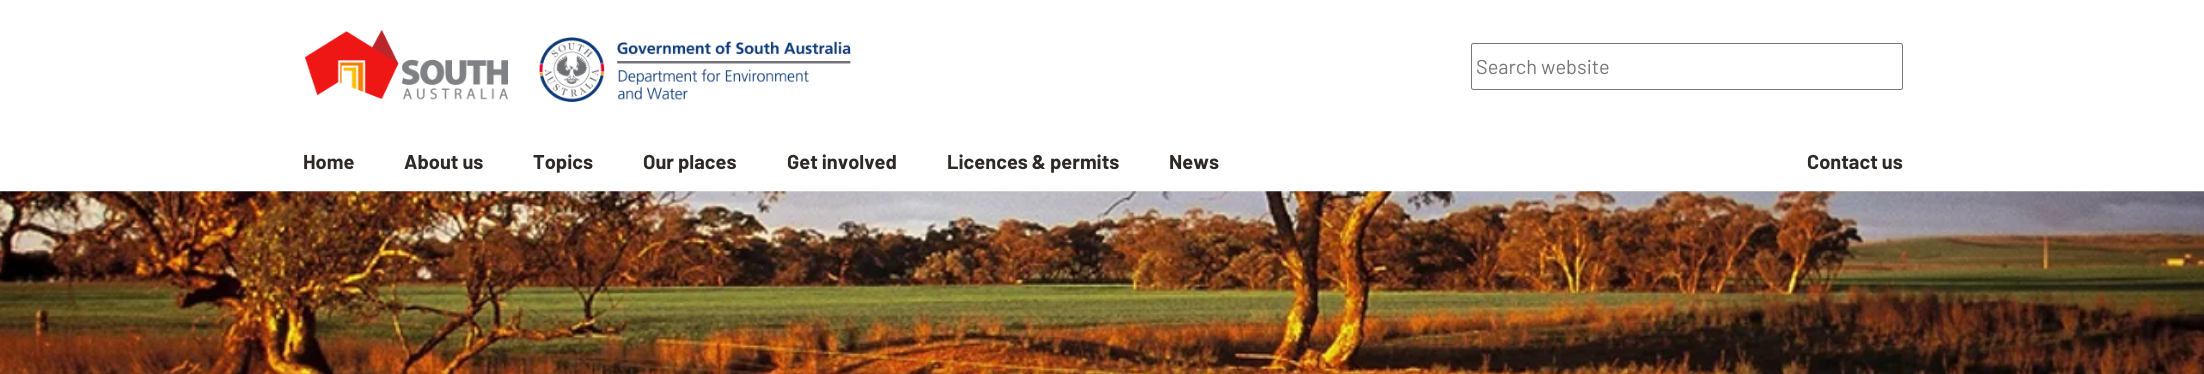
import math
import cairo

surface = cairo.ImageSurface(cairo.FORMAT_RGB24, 2204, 374)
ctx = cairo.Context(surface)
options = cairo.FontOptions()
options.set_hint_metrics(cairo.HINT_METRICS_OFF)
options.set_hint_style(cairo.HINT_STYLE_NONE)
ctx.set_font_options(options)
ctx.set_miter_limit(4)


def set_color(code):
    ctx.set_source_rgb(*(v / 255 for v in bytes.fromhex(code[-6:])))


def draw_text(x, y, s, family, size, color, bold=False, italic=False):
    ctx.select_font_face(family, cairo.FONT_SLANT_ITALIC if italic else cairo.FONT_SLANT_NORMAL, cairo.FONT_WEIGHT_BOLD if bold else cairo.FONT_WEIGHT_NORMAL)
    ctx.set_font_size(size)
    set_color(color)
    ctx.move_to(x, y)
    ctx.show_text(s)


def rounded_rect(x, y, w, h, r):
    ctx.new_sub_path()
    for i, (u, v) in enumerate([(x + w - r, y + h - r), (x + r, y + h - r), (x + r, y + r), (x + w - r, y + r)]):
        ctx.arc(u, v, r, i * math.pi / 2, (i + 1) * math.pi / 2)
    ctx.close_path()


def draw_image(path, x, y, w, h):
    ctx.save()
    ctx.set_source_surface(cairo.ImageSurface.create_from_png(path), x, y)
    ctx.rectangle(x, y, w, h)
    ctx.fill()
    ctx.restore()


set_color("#ffffff")
ctx.paint()
draw_image("assets/img1.png", 304, 29, 547, 73)
rounded_rect(1471.5, 43.5, 431, 46, 2)
set_color("#767676")
ctx.set_line_width(1)
ctx.stroke()
draw_text(1476, 74, "Search website", "Barlow", 20, "#757575")
draw_text(303, 169, "Home", "Barlow", 20, "#2e2925", bold=True)
draw_text(404, 169, "About us", "Barlow", 20, "#2e2925", bold=True)
draw_text(533, 169, "Topics", "Barlow", 20, "#2e2925", bold=True)
draw_text(643, 169, "Our places", "Barlow", 20, "#2e2925", bold=True)
draw_text(787, 169, "Get involved", "Barlow", 20, "#2e2925", bold=True)
draw_text(947, 169, "Licences & permits", "Barlow", 20, "#2e2925", bold=True)
draw_text(1169, 169, "News", "Barlow", 20, "#2e2925", bold=True)
draw_text(1807, 169, "Contact us", "Barlow", 20, "#2e2925", bold=True)
draw_image("assets/img2.png", 0, 191, 2204, 183)
surface.write_to_png("output.png")
